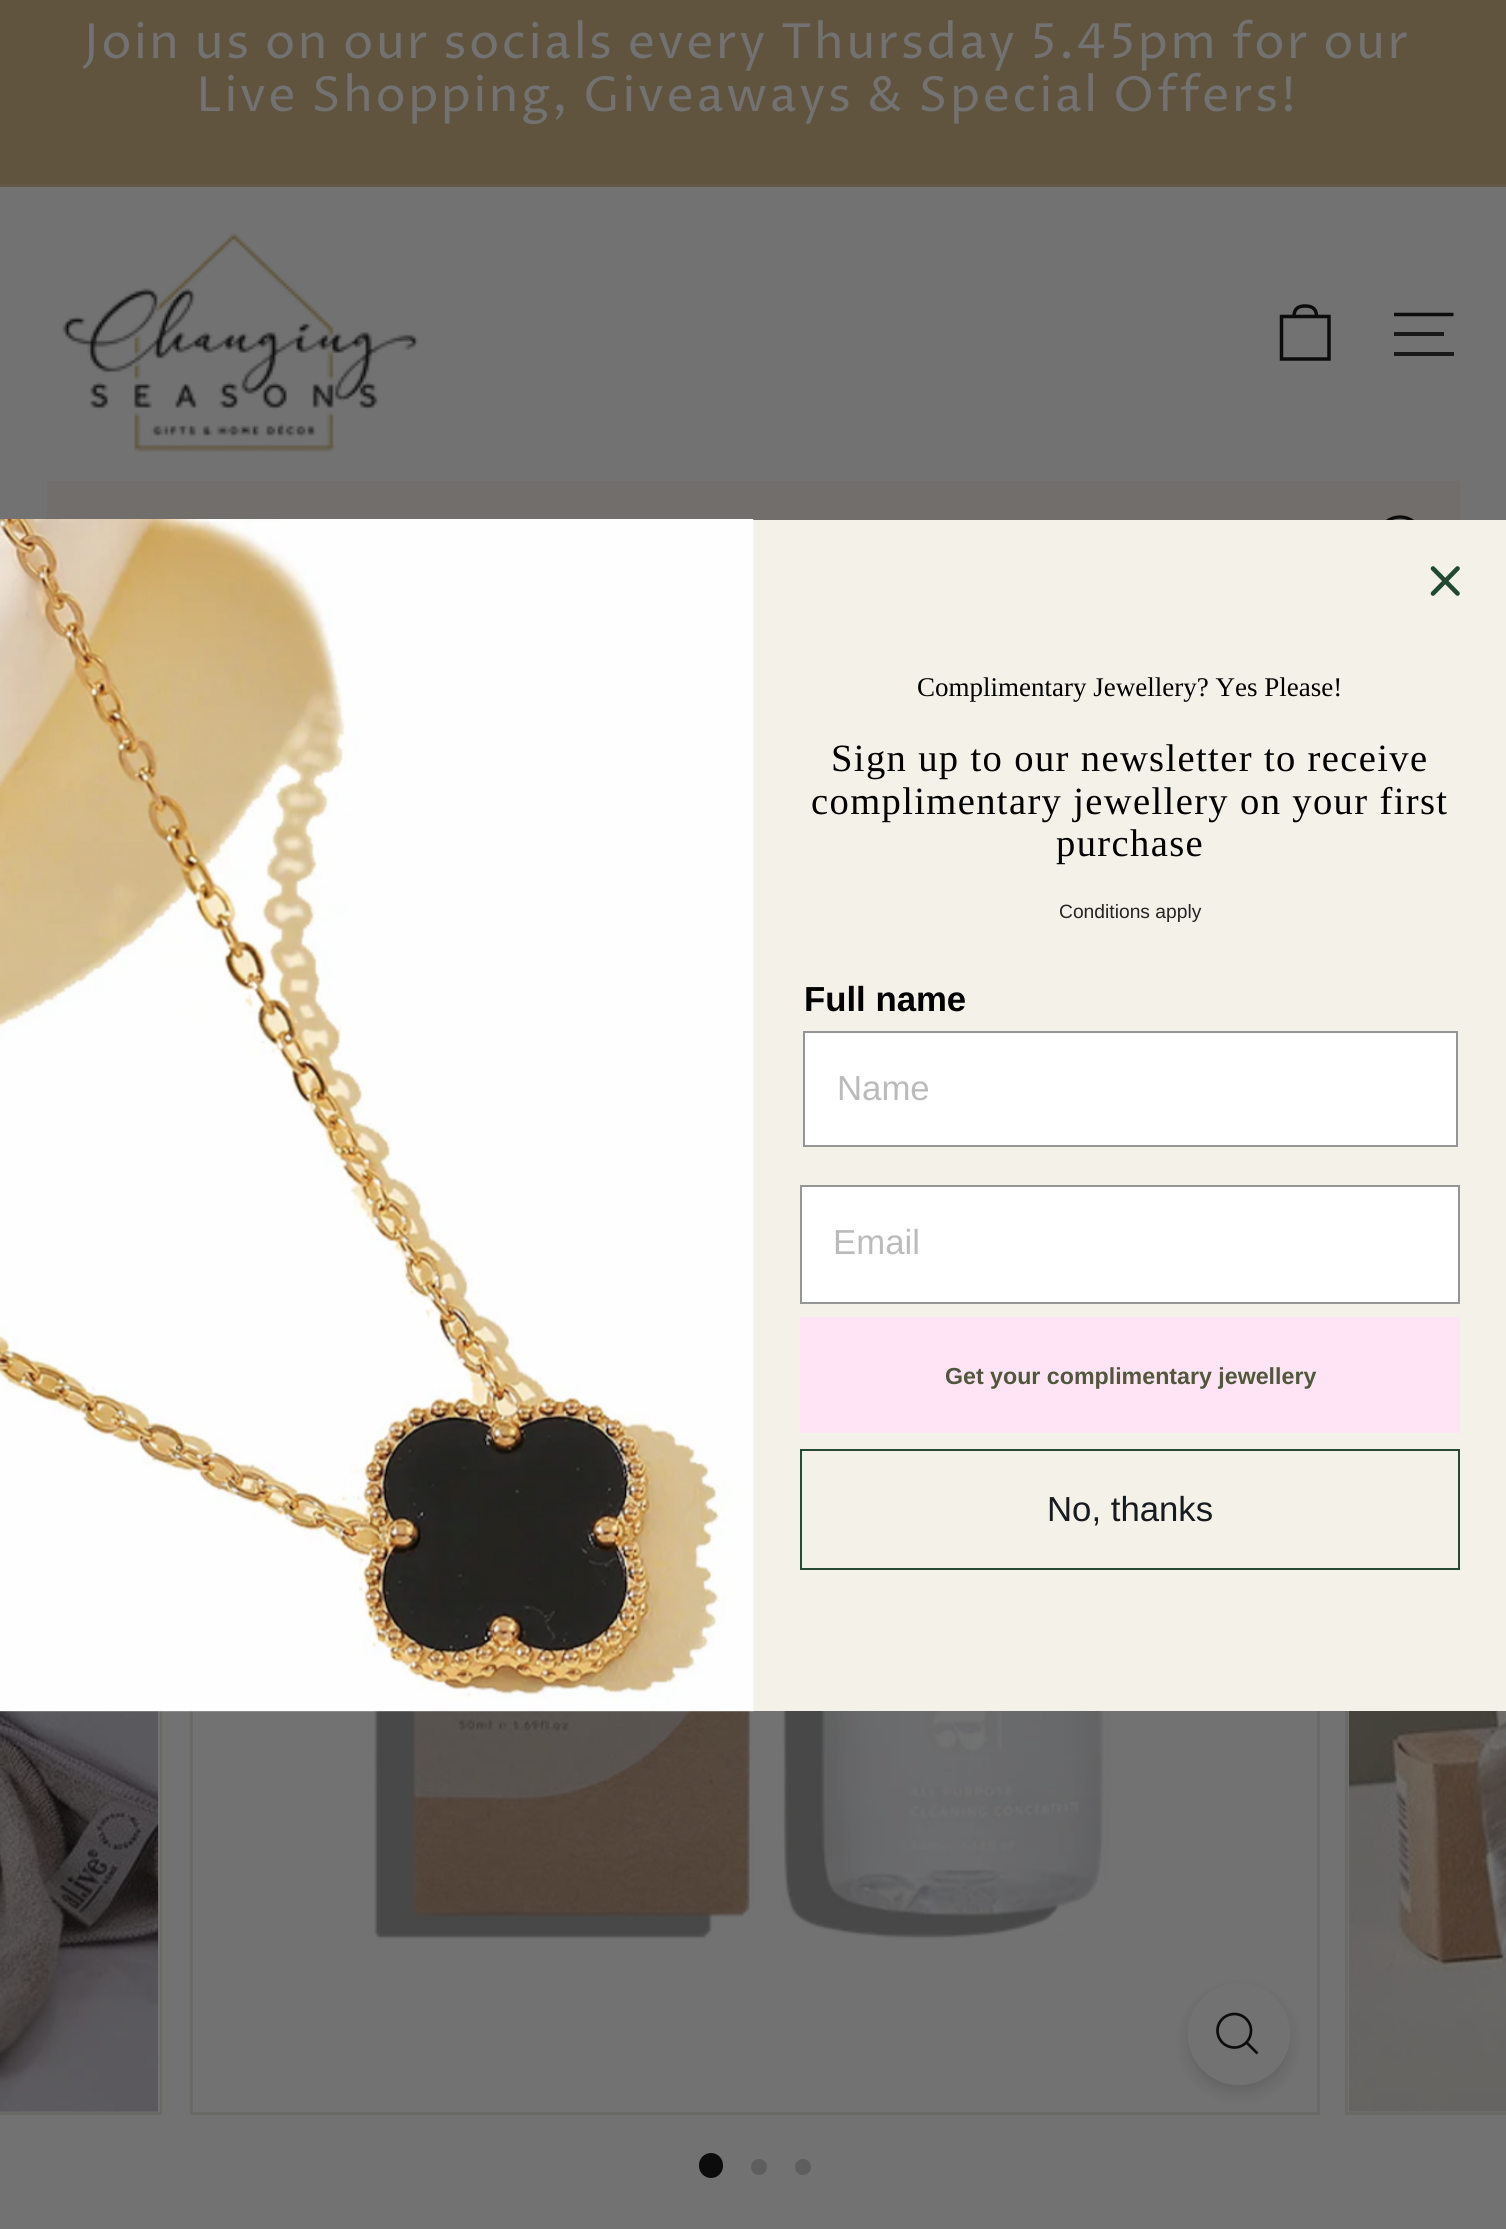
import math
import cairo

surface = cairo.ImageSurface(cairo.FORMAT_RGB24, 1506, 2229)
ctx = cairo.Context(surface)
options = cairo.FontOptions()
options.set_hint_metrics(cairo.HINT_METRICS_OFF)
options.set_hint_style(cairo.HINT_STYLE_NONE)
ctx.set_font_options(options)
ctx.set_miter_limit(4)


def set_color(code):
    ctx.set_source_rgb(*(v / 255 for v in bytes.fromhex(code[-6:])))


def draw_text(x, y, s, family, size, color, bold=False, italic=False):
    ctx.select_font_face(family, cairo.FONT_SLANT_ITALIC if italic else cairo.FONT_SLANT_NORMAL, cairo.FONT_WEIGHT_BOLD if bold else cairo.FONT_WEIGHT_NORMAL)
    ctx.set_font_size(size)
    set_color(color)
    ctx.move_to(x, y)
    ctx.show_text(s)


def draw_spaced(x, y, s, letter, word):
    ctx.move_to(x, y)
    for ch in s:
        ctx.show_text(ch)
        ctx.rel_move_to(letter + word * (ch == ' '), 0)


def fill_rect(x, y, w, h, color):
    set_color(color)
    ctx.rectangle(x, y, w, h)
    ctx.fill()


def rounded_rect(x, y, w, h, r):
    ctx.new_sub_path()
    for i, (u, v) in enumerate([(x + w - r, y + h - r), (x + r, y + h - r), (x + r, y + r), (x + w - r, y + r)]):
        ctx.arc(u, v, r, i * math.pi / 2, (i + 1) * math.pi / 2)
    ctx.close_path()


def draw_shadow(x, y, w, h, r, blur, alpha):
    ctx.push_group_with_content(cairo.CONTENT_ALPHA)
    ctx.set_operator(cairo.OPERATOR_SOURCE)
    for i in range(15, -16, -2):
        e = blur * i / 6
        if min(w, h) + 2 * e > 0:
            ctx.set_source_rgba(0, 0, 0, alpha * math.erfc((i - 1) / 8.5) / 2)
            rounded_rect(x - e, y - e, w + 2 * e, h + 2 * e, max(0, min(r + e + blur * .6, min(w, h) / 2 + e)))
            ctx.fill()
    ctx.mask(ctx.pop_group())


def draw_image(path, x, y, w, h):
    ctx.save()
    ctx.set_source_surface(cairo.ImageSurface.create_from_png(path), x, y)
    ctx.rectangle(x, y, w, h)
    ctx.fill()
    ctx.restore()


set_color("#727272")
ctx.paint()
fill_rect(0, 0, 1506, 184, "#60543e")
ctx.select_font_face("Proza Libre")
ctx.set_font_size(48.4)
set_color("#727272")
draw_spaced(84, 58, "Join us on our socials every Thursday 5.45pm for our", 2.42, 0)
draw_spaced(196, 111, "Live Shopping, Giveaways & Special Offers!", 2.42, 0)
fill_rect(0, 184, 1506, 3, "#635846")
draw_image("assets/img1.png", 62, 233, 357, 219)
ctx.new_path()
ctx.move_to(1294, 316.5)
ctx.curve_to(1294, 308, 1299, 306, 1305, 306)
ctx.curve_to(1311.5, 306, 1316.5, 308, 1316.5, 316.5)
ctx.move_to(1281.5, 316.5)
ctx.line_to(1329, 316.5)
ctx.line_to(1329, 359)
ctx.line_to(1281.5, 359)
ctx.close_path()
set_color("#0c0c0c")
ctx.set_line_width(3.5)
ctx.stroke()
ctx.new_path()
ctx.move_to(1394, 314.5)
ctx.line_to(1453.5, 314.5)
ctx.stroke()
fill_rect(1394, 332, 50, 4, "#191919")
fill_rect(1394, 352, 60, 4, "#191919")
fill_rect(47, 481, 1413, 39, "#716e6c")
ctx.new_path()
ctx.move_to(1420, 536.5)
ctx.curve_to(1420, 563, 1380, 563, 1380, 536.5)
ctx.curve_to(1380, 510.5, 1420, 510.5, 1420, 536.5)
ctx.close_path()
ctx.move_to(1427.5, 564)
ctx.line_to(1414.5, 551)
set_color("#0c0c0c")
ctx.set_line_width(3.2)
ctx.stroke()
ctx.rectangle(-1.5, 986.5, 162, 1127)
set_color("#696966")
ctx.set_line_width(3)
ctx.stroke()
fill_rect(159, 1711, 1, 401, "#727272")
draw_image("assets/img2.png", 0, 1711, 159, 401)
ctx.rectangle(191.5, 986.5, 1127, 1127)
set_color("#696966")
ctx.stroke()
draw_image("assets/img3.png", 374, 1711, 736, 228)
ctx.save()
ctx.set_fill_rule(cairo.FILL_RULE_EVEN_ODD)
ctx.new_path()
ctx.move_to(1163, 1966)
ctx.line_to(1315, 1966)
ctx.line_to(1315, 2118)
ctx.line_to(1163, 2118)
ctx.close_path()
ctx.move_to(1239, 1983)
ctx.curve_to(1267, 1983, 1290, 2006, 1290, 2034)
ctx.curve_to(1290, 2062, 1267, 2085, 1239, 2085)
ctx.curve_to(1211, 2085, 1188, 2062, 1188, 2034)
ctx.curve_to(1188, 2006, 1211, 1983, 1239, 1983)
ctx.close_path()
ctx.clip()
set_color("#0c0c0c")
draw_shadow(1188, 1991, 102, 102, 51, 8, 0.15)
ctx.restore()
set_color("#727272")
ctx.arc(1239, 2034, 51, 0, 2 * math.pi)
ctx.fill()
ctx.new_path()
ctx.move_to(1251, 2030.5)
ctx.curve_to(1251, 2040, 1243.5, 2047.5, 1234.5, 2047.5)
ctx.curve_to(1225, 2047.5, 1217.5, 2040, 1217.5, 2030.5)
ctx.curve_to(1217.5, 2021.5, 1225, 2014, 1234.5, 2014)
ctx.curve_to(1243.5, 2014, 1251, 2021.5, 1251, 2030.5)
ctx.close_path()
ctx.move_to(1257.5, 2053.5)
ctx.line_to(1246.5, 2042.5)
set_color("#0c0c0c")
ctx.set_line_width(2.7)
ctx.stroke()
ctx.rectangle(1346.5, 986.5, 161, 1127)
set_color("#696966")
ctx.set_line_width(3)
ctx.stroke()
draw_image("assets/img4.png", 1348, 1711, 158, 401)
set_color("#0c0c0c")
rounded_rect(699, 2153, 24, 25, 12)
ctx.fill()
set_color("#5e5e5e")
ctx.arc(759, 2167, 8, 0, 2 * math.pi)
ctx.fill()
ctx.arc(803, 2167, 8, 0, 2 * math.pi)
ctx.fill()
fill_rect(753, 520, 753, 1191, "#f4f1e9")
ctx.new_path()
ctx.move_to(1433, 568.5)
ctx.line_to(1457.5, 593.5)
ctx.move_to(1433, 593.5)
ctx.line_to(1457.5, 568.5)
ctx.close_path()
set_color("#214930")
ctx.set_line_width(4.6)
ctx.set_line_cap(cairo.LINE_CAP_ROUND)
ctx.set_line_join(cairo.LINE_JOIN_ROUND)
ctx.stroke()
draw_image("assets/img5.png", 0, 519, 754, 1193)
draw_text(917, 696, "Complimentary Jewellery? Yes Please!", "Liberation Serif", 27, "#000000")
ctx.set_font_size(38.6)
draw_spaced(831, 771, "Sign up to our newsletter to receive", 1.35, 0)
draw_spaced(811, 814, "complimentary jewellery on your first", 1.35, 0)
draw_spaced(1056, 856, "purchase", 1.35, 0)
draw_text(1059, 918, "Conditions apply", "Liberation Sans", 19.25, "#252525")
draw_text(804, 1011, "Full name", "Liberation Sans", 34.75, "#000000", bold=True)
set_color("#ffffff")
ctx.rectangle(804, 1032, 653, 114)
ctx.fill_preserve()
set_color("#949596")
ctx.set_line_width(2)
ctx.set_line_cap(cairo.LINE_CAP_BUTT)
ctx.set_line_join(cairo.LINE_JOIN_MITER)
ctx.stroke()
draw_text(837, 1100, "Name", "Liberation Sans", 34.75, "#bbbbbb")
set_color("#ffffff")
ctx.rectangle(801, 1186, 658, 117)
ctx.fill_preserve()
set_color("#949596")
ctx.stroke()
draw_text(833, 1254, "Email", "Liberation Sans", 34.75, "#bbbbbb")
fill_rect(800, 1317, 660, 116, "#ffe4f5")
draw_text(945, 1384, "Get your complimentary jewellery", "Liberation Sans", 23.2, "#50583c", bold=True)
ctx.rectangle(801, 1450, 658, 119)
set_color("#264a33")
ctx.stroke()
draw_text(1047, 1521, "No, thanks", "Liberation Sans", 34.75, "#161b20")
surface.write_to_png("output.png")
